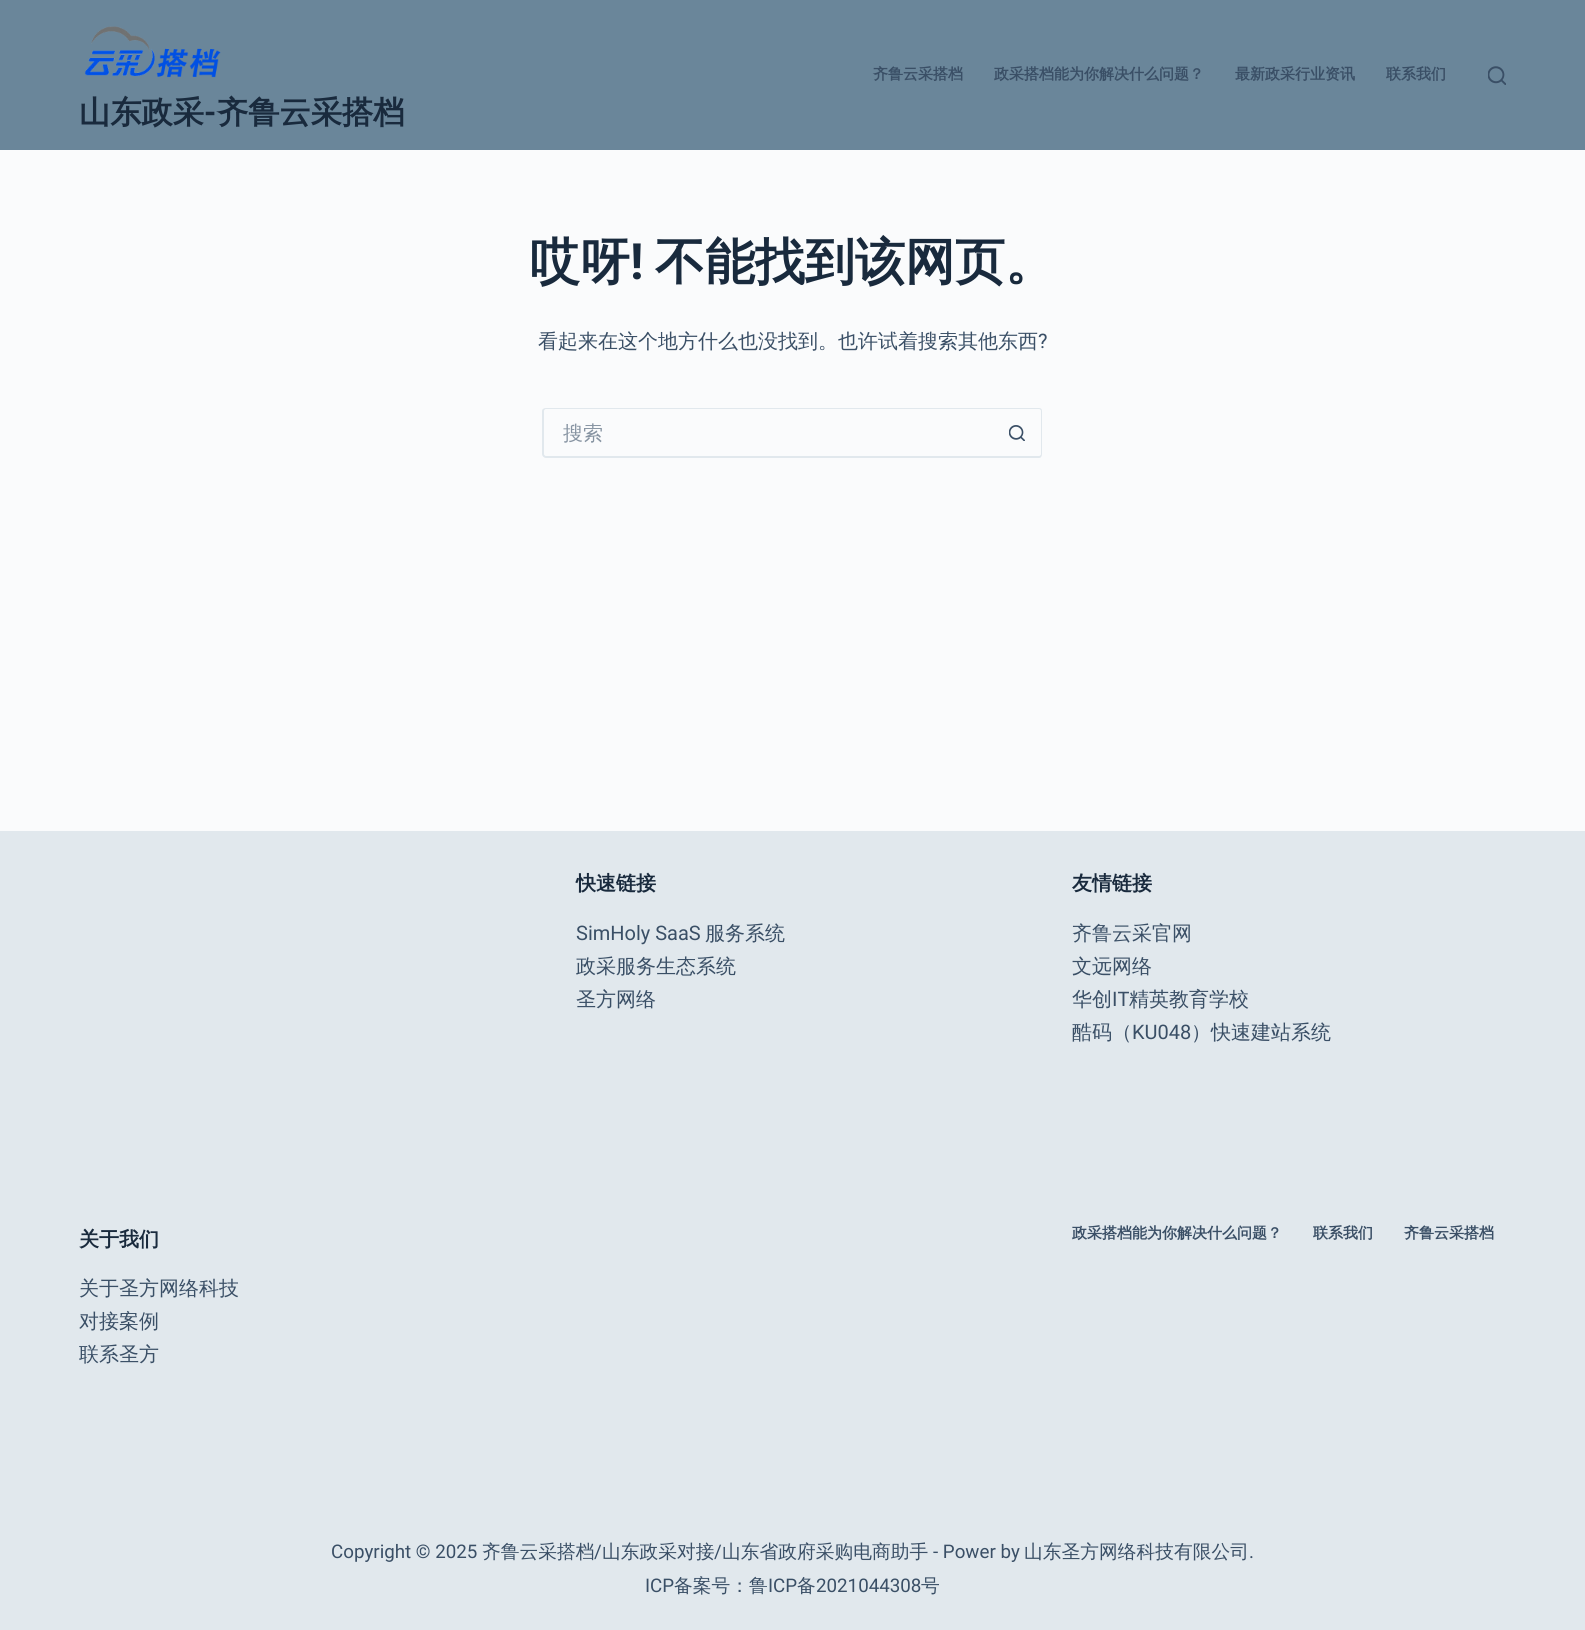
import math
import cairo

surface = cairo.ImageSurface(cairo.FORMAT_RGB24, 1585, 1630)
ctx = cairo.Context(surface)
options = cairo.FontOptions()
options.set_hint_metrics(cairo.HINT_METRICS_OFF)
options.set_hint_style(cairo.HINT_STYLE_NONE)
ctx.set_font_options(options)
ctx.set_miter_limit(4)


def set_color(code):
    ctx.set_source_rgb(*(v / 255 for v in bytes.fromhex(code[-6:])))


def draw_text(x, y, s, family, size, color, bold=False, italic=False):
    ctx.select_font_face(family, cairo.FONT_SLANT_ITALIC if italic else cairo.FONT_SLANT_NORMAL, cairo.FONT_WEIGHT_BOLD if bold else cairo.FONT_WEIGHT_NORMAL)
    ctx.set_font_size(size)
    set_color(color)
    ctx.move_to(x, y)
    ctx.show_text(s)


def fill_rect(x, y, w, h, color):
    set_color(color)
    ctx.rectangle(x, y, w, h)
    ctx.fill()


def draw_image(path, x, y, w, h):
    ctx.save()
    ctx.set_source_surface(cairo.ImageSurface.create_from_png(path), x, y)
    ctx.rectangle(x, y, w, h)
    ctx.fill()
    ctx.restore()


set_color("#fafbfc")
ctx.paint()
fill_rect(0, 0, 1585, 150, "#6a869a")
draw_text(873, 79, "齐鲁云采搭档", "WenQuanYi Zen Hei", 15, "#3a4f66", bold=True)
draw_text(994, 79, "政采搭档能为你解决什么问题？", "WenQuanYi Zen Hei", 15, "#3a4f66", bold=True)
draw_text(1235, 79, "最新政采行业资讯", "WenQuanYi Zen Hei", 15, "#3a4f66", bold=True)
draw_text(1386, 79, "联系我们", "WenQuanYi Zen Hei", 15, "#3a4f66", bold=True)
draw_image("assets/img1.png", 1488, 66, 18, 19)
draw_image("assets/img2.png", 84, 26, 137, 52)
draw_text(79, 123, "山东政采", "WenQuanYi Zen Hei", 31.25, "#192a3d", bold=True)
draw_text(204, 123, "-", "Roboto", 31.25, "#192a3d", bold=True)
draw_text(217, 123, "齐鲁云采搭档", "WenQuanYi Zen Hei", 31.25, "#192a3d", bold=True)
draw_text(530, 279, "哎呀", "WenQuanYi Zen Hei", 50, "#192a3d", bold=True)
draw_text(630, 279, "!", "Roboto", 50, "#192a3d", bold=True)
draw_text(655, 279, "不能找到该网页。", "WenQuanYi Zen Hei", 50, "#192a3d", bold=True)
draw_text(538, 348, "看起来在这个地方什么也没找到。也许试着搜索其他东西", "WenQuanYi Zen Hei Medium", 20, "#3a4f66")
draw_text(1038, 348, "?", "Roboto", 20, "#3a4f66")
set_color("#e1e8ed")
ctx.set_fill_rule(cairo.FILL_RULE_EVEN_ODD)
ctx.new_path()
ctx.move_to(546, 408)
ctx.line_to(992, 408)
ctx.line_to(992, 458)
ctx.line_to(546, 458)
ctx.curve_to(544, 458, 542, 456, 542, 454)
ctx.line_to(542, 411)
ctx.curve_to(542, 409, 544, 408, 546, 408)
ctx.close_path()
ctx.move_to(546, 409)
ctx.line_to(992, 409)
ctx.line_to(992, 456)
ctx.line_to(546, 456)
ctx.curve_to(545, 456, 544, 455, 544, 454)
ctx.line_to(544, 411)
ctx.curve_to(544, 410, 545, 409, 546, 409)
ctx.close_path()
ctx.fill()
draw_text(563, 440, "搜索", "WenQuanYi Zen Hei Medium", 20, "#8794a2")
set_color("#e1e8ed")
ctx.new_path()
ctx.move_to(992, 408)
ctx.line_to(1039, 408)
ctx.curve_to(1041, 408, 1042, 409, 1042, 411)
ctx.line_to(1042, 454)
ctx.curve_to(1042, 456, 1041, 458, 1039, 458)
ctx.line_to(992, 458)
ctx.close_path()
ctx.move_to(992, 409)
ctx.line_to(1039, 409)
ctx.curve_to(1040, 409, 1041, 410, 1041, 411)
ctx.line_to(1041, 454)
ctx.curve_to(1041, 455, 1040, 456, 1039, 456)
ctx.line_to(992, 456)
ctx.close_path()
ctx.fill()
draw_image("assets/img3.png", 1009, 425, 16, 16)
fill_rect(0, 831, 1585, 799, "#e1e8ed")
draw_text(576, 890, "快速链接", "WenQuanYi Zen Hei", 20, "#192a3d", bold=True)
draw_text(576, 940, "SimHoly SaaS", "Roboto", 20, "#3a4f66")
draw_text(705, 940, "服务系统", "WenQuanYi Zen Hei Medium", 20, "#3a4f66")
draw_text(576, 973, "政采服务生态系统", "WenQuanYi Zen Hei Medium", 20, "#3a4f66")
draw_text(576, 1006, "圣方网络", "WenQuanYi Zen Hei Medium", 20, "#3a4f66")
draw_text(1072, 890, "友情链接", "WenQuanYi Zen Hei", 20, "#192a3d", bold=True)
draw_text(1072, 940, "齐鲁云采官网", "WenQuanYi Zen Hei Medium", 20, "#3a4f66")
draw_text(1072, 973, "文远网络", "WenQuanYi Zen Hei Medium", 20, "#3a4f66")
draw_text(1072, 1006, "华创", "WenQuanYi Zen Hei Medium", 20, "#3a4f66")
draw_text(1112, 1006, "IT", "Roboto", 20, "#3a4f66")
draw_text(1129, 1006, "精英教育学校", "WenQuanYi Zen Hei Medium", 20, "#3a4f66")
draw_text(1072, 1039, "酷码（", "WenQuanYi Zen Hei Medium", 20, "#3a4f66")
draw_text(1132, 1039, "KU048", "Roboto", 20, "#3a4f66")
draw_text(1191, 1039, "）快速建站系统", "WenQuanYi Zen Hei Medium", 20, "#3a4f66")
draw_text(79, 1246, "关于我们", "WenQuanYi Zen Hei", 20, "#192a3d", bold=True)
draw_text(79, 1295, "关于圣方网络科技", "WenQuanYi Zen Hei Medium", 20, "#3a4f66")
draw_text(79, 1328, "对接案例", "WenQuanYi Zen Hei Medium", 20, "#3a4f66")
draw_text(79, 1361, "联系圣方", "WenQuanYi Zen Hei Medium", 20, "#3a4f66")
draw_text(1072, 1238, "政采搭档能为你解决什么问题？", "WenQuanYi Zen Hei", 15, "#3a4f66", bold=True)
draw_text(1313, 1238, "联系我们", "WenQuanYi Zen Hei", 15, "#3a4f66", bold=True)
draw_text(1404, 1238, "齐鲁云采搭档", "WenQuanYi Zen Hei", 15, "#3a4f66", bold=True)
draw_text(331, 1558, "Copyright © 2025", "Roboto", 18.75, "#3a4f66")
draw_text(482, 1558, "齐鲁云采搭档", "WenQuanYi Zen Hei Medium", 18.75, "#3a4f66")
draw_text(594, 1558, "/", "Roboto", 18.75, "#3a4f66")
draw_text(602, 1558, "山东政采对接", "WenQuanYi Zen Hei Medium", 18.75, "#3a4f66")
draw_text(714, 1558, "/", "Roboto", 18.75, "#3a4f66")
draw_text(722, 1558, "山东省政府采购电商助手", "WenQuanYi Zen Hei Medium", 18.75, "#3a4f66")
draw_text(933, 1558, "- Power by", "Roboto", 18.75, "#3a4f66")
draw_text(1024, 1558, "山东圣方网络科技有限公司", "WenQuanYi Zen Hei Medium", 18.75, "#3a4f66")
draw_text(1249, 1558, ".", "Roboto", 18.75, "#3a4f66")
draw_text(645, 1592, "ICP", "Roboto", 18.75, "#3a4f66")
draw_text(674, 1592, "备案号：鲁", "WenQuanYi Zen Hei Medium", 18.75, "#3a4f66")
draw_text(768, 1592, "ICP", "Roboto", 18.75, "#3a4f66")
draw_text(797, 1592, "备", "WenQuanYi Zen Hei Medium", 18.75, "#3a4f66")
draw_text(816, 1592, "2021044308", "Roboto", 18.75, "#3a4f66")
draw_text(921, 1592, "号", "WenQuanYi Zen Hei Medium", 18.75, "#3a4f66")
surface.write_to_png("output.png")
